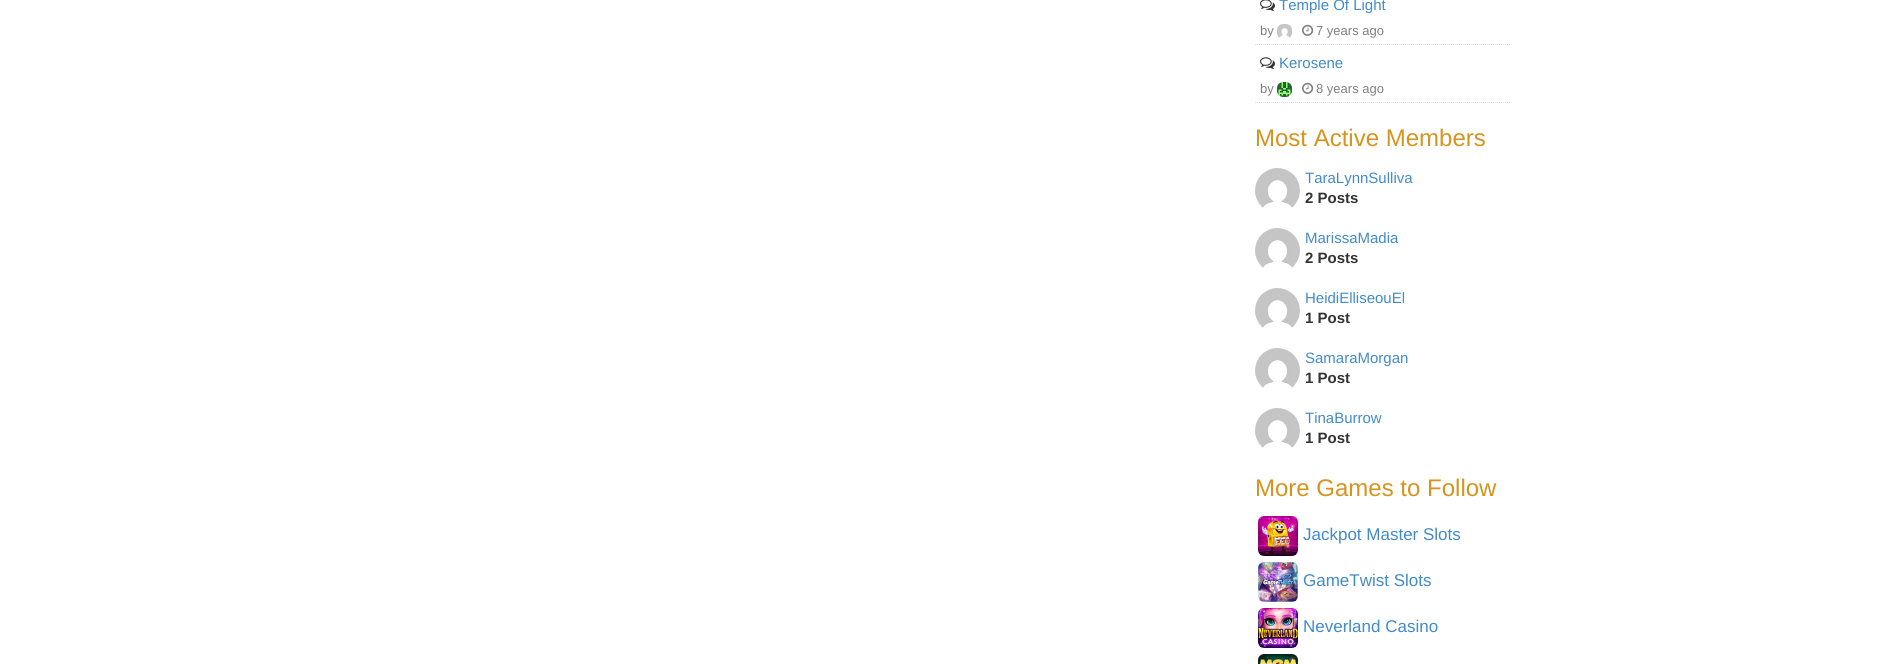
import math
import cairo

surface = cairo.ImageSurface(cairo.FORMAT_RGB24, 1887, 664)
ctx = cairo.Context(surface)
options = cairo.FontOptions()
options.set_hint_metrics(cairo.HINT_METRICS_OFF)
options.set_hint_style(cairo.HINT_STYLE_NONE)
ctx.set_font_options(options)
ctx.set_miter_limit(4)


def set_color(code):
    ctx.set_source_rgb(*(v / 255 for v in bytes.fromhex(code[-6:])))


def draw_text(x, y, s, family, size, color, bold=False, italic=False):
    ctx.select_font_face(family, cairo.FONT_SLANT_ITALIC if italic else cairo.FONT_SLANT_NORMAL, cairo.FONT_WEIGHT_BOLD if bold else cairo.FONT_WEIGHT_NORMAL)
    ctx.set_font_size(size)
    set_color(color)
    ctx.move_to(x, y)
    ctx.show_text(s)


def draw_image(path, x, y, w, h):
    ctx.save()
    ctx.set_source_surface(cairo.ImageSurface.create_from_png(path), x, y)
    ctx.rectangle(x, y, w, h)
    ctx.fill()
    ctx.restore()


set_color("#ffffff")
ctx.paint()
ctx.new_path()
ctx.move_to(1255, 44.5)
ctx.line_to(1510, 44.5)
set_color("#dddddd")
ctx.set_line_width(1)
ctx.set_dash([1, 1])
ctx.stroke()
draw_image("assets/img1.png", 1260, 0, 15, 11)
draw_text(1279, 10, "Temple Of Light", "Liberation Sans", 15, "#428bca")
draw_text(1260, 35, "by", "Liberation Sans", 13, "#808080")
draw_image("assets/img2.png", 1277, 24, 15, 14)
draw_image("assets/img3.png", 1302, 24, 12, 12)
draw_text(1316, 35, "7 years ago", "Liberation Sans", 13, "#808080")
ctx.new_path()
ctx.move_to(1255, 102.5)
ctx.line_to(1510, 102.5)
set_color("#dddddd")
ctx.stroke()
draw_image("assets/img4.png", 1260, 57, 15, 12)
draw_text(1279, 68, "Kerosene", "Liberation Sans", 15, "#428bca")
draw_text(1260, 93, "by", "Liberation Sans", 13, "#808080")
draw_image("assets/img5.png", 1277, 82, 15, 15)
draw_image("assets/img3.png", 1302, 82, 12, 12)
draw_text(1316, 93, "8 years ago", "Liberation Sans", 13, "#808080")
draw_text(1255, 146, "Most Active Members", "Liberation Sans", 24, "#d6941e")
draw_image("assets/img6.png", 1255, 168, 45, 40)
draw_text(1305, 183, "TaraLynnSulliva", "Liberation Sans", 15, "#428bca")
draw_text(1305, 203, "2 Posts", "Liberation Sans", 15, "#333333", bold=True)
draw_image("assets/img6.png", 1255, 228, 45, 40)
draw_text(1305, 243, "MarissaMadia", "Liberation Sans", 15, "#428bca")
draw_text(1305, 263, "2 Posts", "Liberation Sans", 15, "#333333", bold=True)
draw_image("assets/img6.png", 1255, 288, 45, 40)
draw_text(1305, 303, "HeidiElliseouEl", "Liberation Sans", 15, "#428bca")
draw_text(1305, 323, "1 Post", "Liberation Sans", 15, "#333333", bold=True)
draw_image("assets/img6.png", 1255, 348, 45, 40)
draw_text(1305, 363, "SamaraMorgan", "Liberation Sans", 15, "#428bca")
draw_text(1305, 383, "1 Post", "Liberation Sans", 15, "#333333", bold=True)
draw_image("assets/img6.png", 1255, 408, 45, 40)
draw_text(1305, 423, "TinaBurrow", "Liberation Sans", 15, "#428bca")
draw_text(1305, 443, "1 Post", "Liberation Sans", 15, "#333333", bold=True)
draw_text(1255, 496, "More Games to Follow", "Liberation Sans", 24, "#d6941e")
draw_image("assets/img7.png", 1258, 516, 40, 40)
draw_text(1303, 540, "Jackpot Master Slots", "Liberation Sans", 17, "#428bca")
draw_image("assets/img8.png", 1258, 562, 40, 40)
draw_text(1303, 586, "GameTwist Slots", "Liberation Sans", 17, "#428bca")
draw_image("assets/img9.png", 1258, 608, 40, 40)
draw_text(1303, 632, "Neverland Casino", "Liberation Sans", 17, "#428bca")
draw_image("assets/img10.png", 1258, 654, 40, 10)
surface.write_to_png("output.png")
